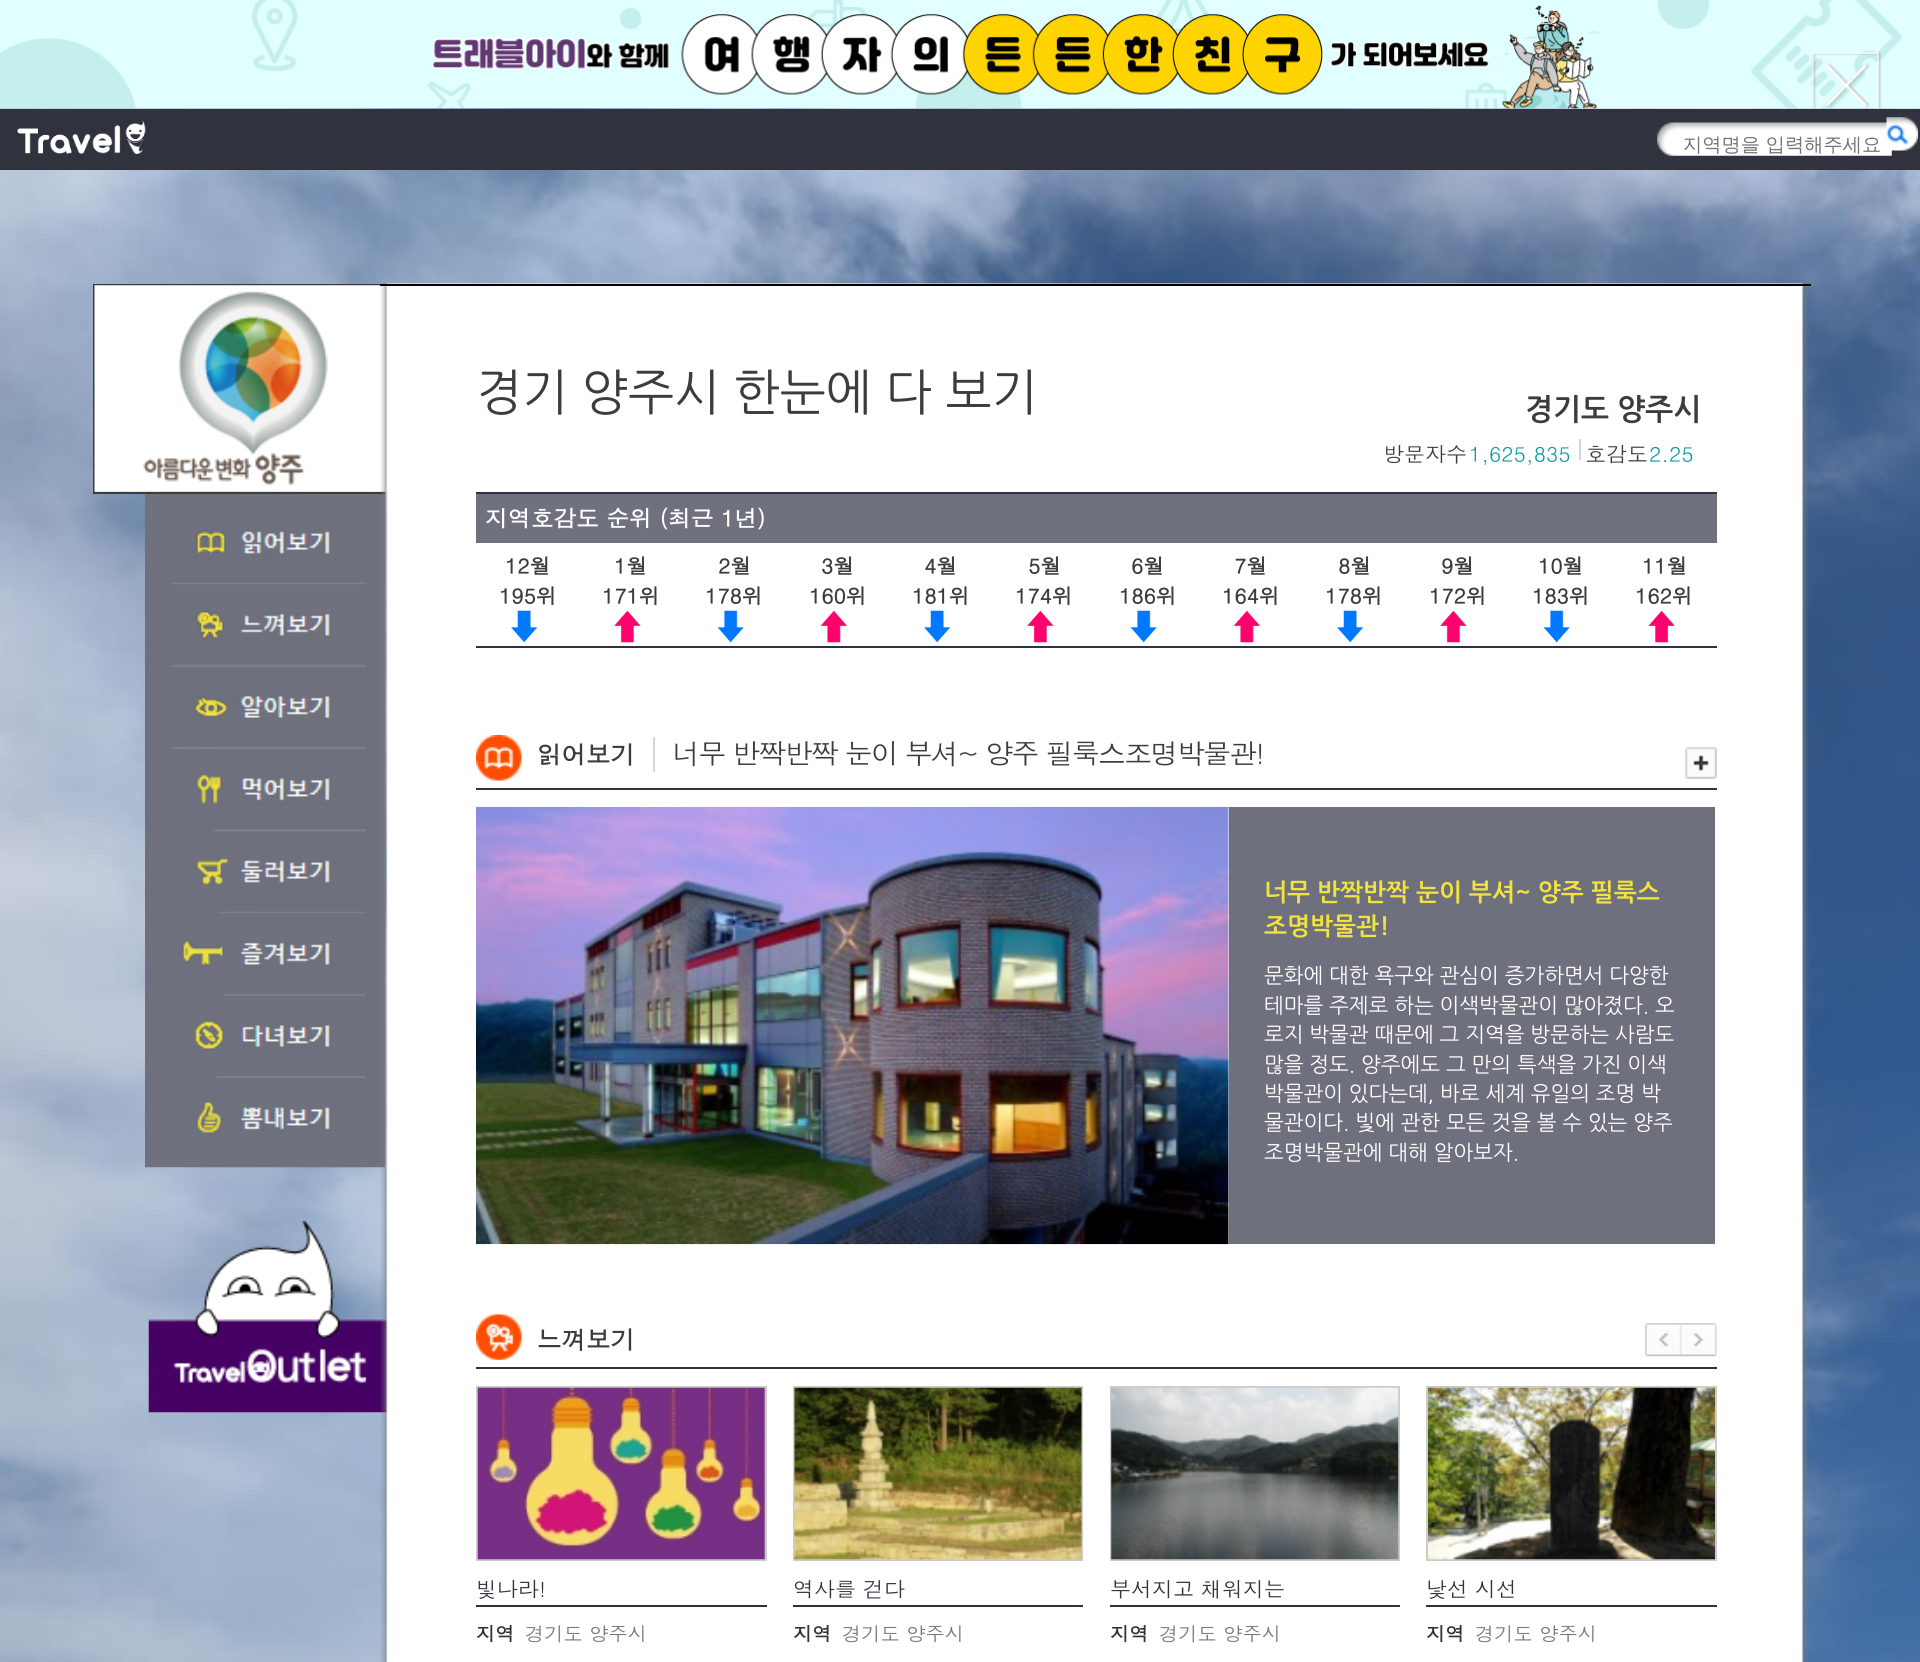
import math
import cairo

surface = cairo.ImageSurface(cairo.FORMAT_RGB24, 1920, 1662)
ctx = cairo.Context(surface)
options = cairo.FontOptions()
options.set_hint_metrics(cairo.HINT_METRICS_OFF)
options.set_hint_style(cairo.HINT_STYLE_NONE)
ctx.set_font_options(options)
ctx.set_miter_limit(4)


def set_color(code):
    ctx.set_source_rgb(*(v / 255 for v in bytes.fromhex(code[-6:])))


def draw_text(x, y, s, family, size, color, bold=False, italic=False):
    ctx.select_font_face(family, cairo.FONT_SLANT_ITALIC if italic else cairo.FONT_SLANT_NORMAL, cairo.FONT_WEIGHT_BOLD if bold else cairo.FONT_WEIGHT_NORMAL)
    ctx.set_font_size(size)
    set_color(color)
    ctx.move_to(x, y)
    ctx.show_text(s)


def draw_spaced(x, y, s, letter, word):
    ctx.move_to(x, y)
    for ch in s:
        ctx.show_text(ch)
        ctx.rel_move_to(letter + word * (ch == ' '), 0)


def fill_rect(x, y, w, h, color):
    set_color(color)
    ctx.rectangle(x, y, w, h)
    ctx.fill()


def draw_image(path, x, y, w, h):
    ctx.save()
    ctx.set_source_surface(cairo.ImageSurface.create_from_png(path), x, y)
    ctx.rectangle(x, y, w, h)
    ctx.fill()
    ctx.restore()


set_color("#ffffff")
ctx.paint()
draw_image("assets/img1.png", 0, 108, 1920, 1554)
draw_image("assets/img2.png", 0, 0, 1920, 109)
draw_image("assets/img3.png", 1811, 52, 71, 57)
fill_rect(0, 109, 1920, 61, "#30333e")
draw_image("assets/img4.png", 17, 120, 129, 34)
draw_image("assets/img5.png", 1657, 122, 235, 34)
draw_text(1683, 151, "지역명을 입력해주세요", "WenQuanYi Zen Hei Medium", 19.25, "#757575")
draw_image("assets/img6.png", 1886, 117, 32, 34)
ctx.rectangle(94, 285, 290, 208)
set_color("#3c3c3c")
ctx.stroke()
draw_image("assets/img7.png", 94, 285, 294, 207)
fill_rect(145, 494, 240, 673, "#6e717d")
draw_image("assets/img8.png", 145, 494, 240, 91)
draw_image("assets/img9.png", 171, 584, 195, 83)
draw_image("assets/img10.png", 171, 696, 195, 53)
draw_image("assets/img11.png", 197, 774, 169, 58)
draw_image("assets/img12.png", 196, 858, 170, 56)
draw_image("assets/img13.png", 177, 913, 189, 83)
draw_image("assets/img14.png", 195, 1021, 171, 57)
draw_image("assets/img15.png", 145, 1102, 240, 66)
draw_image("assets/img16.png", 148, 1219, 240, 194)
draw_image("assets/img17.png", 380, 283, 1429, 1379)
fill_rect(380, 284, 1431, 2, "#000000")
fill_rect(476, 492, 1241, 2, "#30333e")
draw_text(476, 410, "경기 양주시 한눈에 다 보기", "NanumGothic", 49, "#3c3c3c")
draw_text(1525, 420, "경기도 양주시", "NanumGothic", 29.75, "#3c3c3c", bold=True)
fill_rect(1579, 439, 2, 21, "#d1d3dd")
draw_text(1383, 462, "방문자수", "Dotum", 21, "#3c3c3c")
draw_text(1469, 462, "1,625,835", "Dotum", 21, "#0f9ba0")
draw_text(1585, 462, "호감도", "Dotum", 21, "#3c3c3c")
draw_text(1649, 462, "2.25", "Dotum", 21, "#0f9ba0")
fill_rect(476, 646, 1241, 2, "#30333e")
fill_rect(476, 494, 1241, 49, "#6f717e")
draw_text(485, 527, "지역호감도 순위 (최근 1년)", "Dotum", 22.75, "#ffffff", bold=True)
draw_text(505, 574, "12월", "Dotum", 21, "#3c3c3c", bold=True)
draw_text(499, 604, "195위", "Dotum", 21, "#3c3c3c", bold=True)
draw_image("assets/img18.png", 511, 610, 27, 33)
draw_text(614, 574, "1월", "Dotum", 21, "#3c3c3c", bold=True)
draw_text(602, 604, "171위", "Dotum", 21, "#3c3c3c", bold=True)
draw_image("assets/img19.png", 614, 610, 27, 33)
draw_text(718, 574, "2월", "Dotum", 21, "#3c3c3c", bold=True)
draw_text(705, 604, "178위", "Dotum", 21, "#3c3c3c", bold=True)
draw_image("assets/img20.png", 717, 610, 27, 33)
draw_text(821, 574, "3월", "Dotum", 21, "#3c3c3c", bold=True)
draw_text(809, 604, "160위", "Dotum", 21, "#3c3c3c", bold=True)
draw_image("assets/img21.png", 820, 610, 27, 33)
draw_text(924, 574, "4월", "Dotum", 21, "#3c3c3c", bold=True)
draw_text(912, 604, "181위", "Dotum", 21, "#3c3c3c", bold=True)
draw_image("assets/img18.png", 924, 610, 27, 33)
draw_text(1028, 574, "5월", "Dotum", 21, "#3c3c3c", bold=True)
draw_text(1015, 604, "174위", "Dotum", 21, "#3c3c3c", bold=True)
draw_image("assets/img19.png", 1027, 610, 27, 33)
draw_text(1131, 574, "6월", "Dotum", 21, "#3c3c3c", bold=True)
draw_text(1119, 604, "186위", "Dotum", 21, "#3c3c3c", bold=True)
draw_image("assets/img20.png", 1130, 610, 27, 33)
draw_text(1234, 574, "7월", "Dotum", 21, "#3c3c3c", bold=True)
draw_text(1222, 604, "164위", "Dotum", 21, "#3c3c3c", bold=True)
draw_image("assets/img22.png", 1233, 610, 27, 33)
draw_text(1338, 574, "8월", "Dotum", 21, "#3c3c3c", bold=True)
draw_text(1325, 604, "178위", "Dotum", 21, "#3c3c3c", bold=True)
draw_image("assets/img18.png", 1337, 610, 27, 33)
draw_text(1441, 574, "9월", "Dotum", 21, "#3c3c3c", bold=True)
draw_text(1429, 604, "172위", "Dotum", 21, "#3c3c3c", bold=True)
draw_image("assets/img19.png", 1440, 610, 27, 33)
draw_text(1538, 574, "10월", "Dotum", 21, "#3c3c3c", bold=True)
draw_text(1532, 604, "183위", "Dotum", 21, "#3c3c3c", bold=True)
draw_image("assets/img20.png", 1543, 610, 27, 33)
draw_text(1642, 574, "11월", "Dotum", 21, "#3c3c3c", bold=True)
draw_text(1635, 604, "162위", "Dotum", 21, "#3c3c3c", bold=True)
draw_image("assets/img23.png", 1648, 610, 27, 33)
draw_image("assets/img24.png", 476, 735, 46, 46)
fill_rect(476, 788, 1241, 2, "#30333e")
draw_text(537, 764, "읽어보기", "Dotum", 24.5, "#3c3c3c", bold=True)
fill_rect(653, 737, 2, 35, "#d5d7da")
ctx.select_font_face("Dotum")
ctx.set_font_size(28)
set_color("#3c3c3c")
draw_spaced(672, 764, "너무 반짝반짝 눈이 부셔~ 양주 필룩스조명박물관!", -1.75, 0)
draw_image("assets/img25.png", 1685, 747, 32, 32)
draw_image("assets/img26.png", 476, 806, 753, 439)
fill_rect(1229, 807, 486, 437, "#6e717d")
draw_text(1264, 901, "너무 반짝반짝 눈이 부셔~ 양주 필룩스", "NanumGothic", 24.5, "#f1e23e", bold=True)
draw_text(1264, 935, "조명박물관!", "NanumGothic", 24.5, "#f1e23e", bold=True)
draw_text(1264, 983, "문화에 대한 욕구와 관심이 증가하면서 다양한", "NanumGothic", 21, "#ffffff")
draw_text(1264, 1013, "테마를 주제로 하는 이색박물관이 많아졌다. 오", "NanumGothic", 21, "#ffffff")
draw_text(1264, 1042, "로지 박물관 때문에 그 지역을 방문하는 사람도", "NanumGothic", 21, "#ffffff")
draw_text(1264, 1072, "많을 정도. 양주에도 그 만의 특색을 가진 이색", "NanumGothic", 21, "#ffffff")
draw_text(1264, 1101, "박물관이 있다는데, 바로 세계 유일의 조명 박", "NanumGothic", 21, "#ffffff")
draw_text(1264, 1130, "물관이다. 빛에 관한 모든 것을 볼 수 있는 양주", "NanumGothic", 21, "#ffffff")
draw_text(1264, 1160, "조명박물관에 대해 알아보자.", "NanumGothic", 21, "#ffffff")
draw_image("assets/img27.png", 476, 1314, 46, 46)
fill_rect(476, 1367, 1241, 2, "#30333e")
draw_text(537, 1349, "느껴보기", "Dotum", 24.5, "#3c3c3c", bold=True)
draw_image("assets/img28.png", 1645, 1323, 37, 34)
draw_image("assets/img29.png", 1681, 1323, 36, 34)
ctx.rectangle(477, 1387, 289, 173)
set_color("#cccccc")
ctx.stroke()
draw_image("assets/img30.png", 477, 1387, 288, 173)
fill_rect(476, 1605, 291, 2, "#30333e")
draw_text(476, 1597, "빛나라!", "Dotum", 21, "#30333e")
draw_text(476, 1641, "지역", "Dotum", 19.25, "#30333e", bold=True)
draw_text(525, 1641, "경기도 양주시", "Dotum", 19.25, "#737683")
ctx.rectangle(794, 1387, 288, 173)
set_color("#cccccc")
ctx.stroke()
draw_image("assets/img31.png", 794, 1387, 288, 173)
fill_rect(793, 1605, 290, 2, "#30333e")
draw_text(793, 1597, "역사를 걷다", "Dotum", 21, "#30333e")
draw_text(793, 1641, "지역", "Dotum", 19.25, "#30333e", bold=True)
draw_text(842, 1641, "경기도 양주시", "Dotum", 19.25, "#737683")
ctx.rectangle(1111, 1387, 288, 173)
set_color("#cccccc")
ctx.stroke()
draw_image("assets/img32.png", 1111, 1387, 288, 173)
fill_rect(1110, 1605, 290, 2, "#30333e")
draw_text(1110, 1597, "부서지고 채워지는", "Dotum", 21, "#30333e")
draw_text(1110, 1641, "지역", "Dotum", 19.25, "#30333e", bold=True)
draw_text(1159, 1641, "경기도 양주시", "Dotum", 19.25, "#737683")
ctx.rectangle(1427, 1387, 289, 173)
set_color("#cccccc")
ctx.stroke()
draw_image("assets/img33.png", 1428, 1387, 287, 173)
fill_rect(1426, 1605, 291, 2, "#30333e")
draw_text(1426, 1597, "낯선 시선", "Dotum", 21, "#30333e")
draw_text(1426, 1641, "지역", "Dotum", 19.25, "#30333e", bold=True)
draw_text(1475, 1641, "경기도 양주시", "Dotum", 19.25, "#737683")
surface.write_to_png("output.png")
